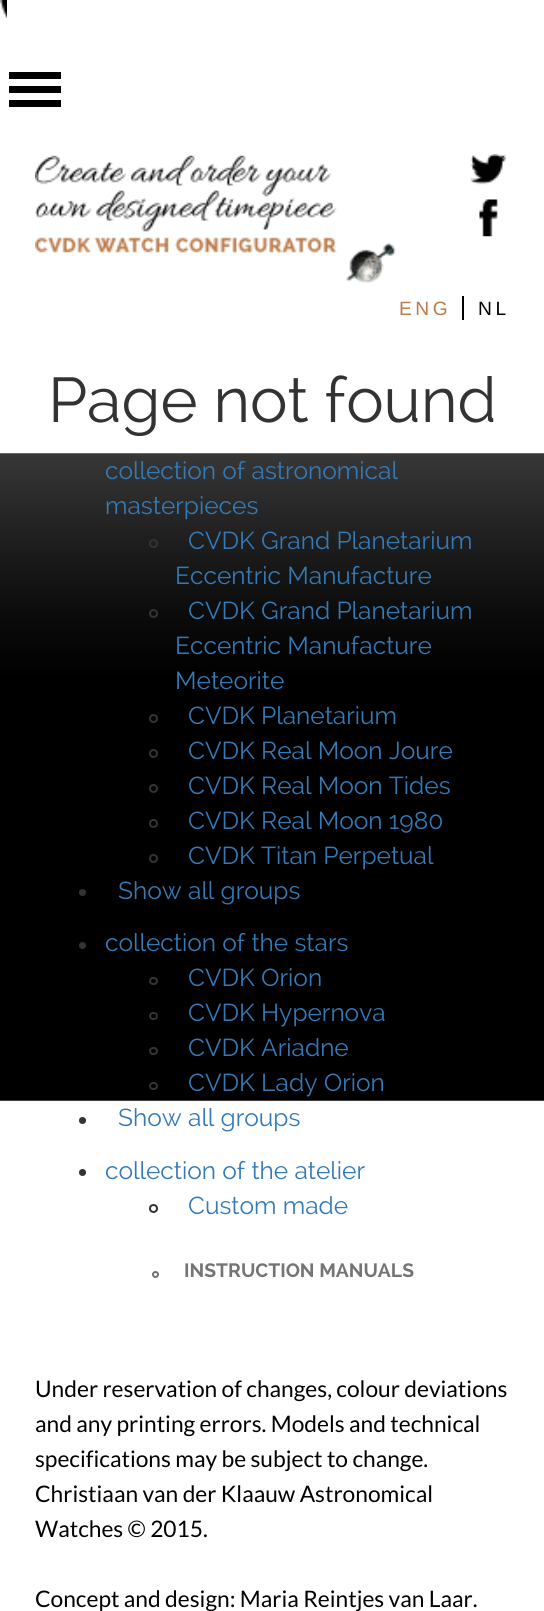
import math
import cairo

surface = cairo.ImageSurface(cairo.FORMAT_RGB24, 544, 1611)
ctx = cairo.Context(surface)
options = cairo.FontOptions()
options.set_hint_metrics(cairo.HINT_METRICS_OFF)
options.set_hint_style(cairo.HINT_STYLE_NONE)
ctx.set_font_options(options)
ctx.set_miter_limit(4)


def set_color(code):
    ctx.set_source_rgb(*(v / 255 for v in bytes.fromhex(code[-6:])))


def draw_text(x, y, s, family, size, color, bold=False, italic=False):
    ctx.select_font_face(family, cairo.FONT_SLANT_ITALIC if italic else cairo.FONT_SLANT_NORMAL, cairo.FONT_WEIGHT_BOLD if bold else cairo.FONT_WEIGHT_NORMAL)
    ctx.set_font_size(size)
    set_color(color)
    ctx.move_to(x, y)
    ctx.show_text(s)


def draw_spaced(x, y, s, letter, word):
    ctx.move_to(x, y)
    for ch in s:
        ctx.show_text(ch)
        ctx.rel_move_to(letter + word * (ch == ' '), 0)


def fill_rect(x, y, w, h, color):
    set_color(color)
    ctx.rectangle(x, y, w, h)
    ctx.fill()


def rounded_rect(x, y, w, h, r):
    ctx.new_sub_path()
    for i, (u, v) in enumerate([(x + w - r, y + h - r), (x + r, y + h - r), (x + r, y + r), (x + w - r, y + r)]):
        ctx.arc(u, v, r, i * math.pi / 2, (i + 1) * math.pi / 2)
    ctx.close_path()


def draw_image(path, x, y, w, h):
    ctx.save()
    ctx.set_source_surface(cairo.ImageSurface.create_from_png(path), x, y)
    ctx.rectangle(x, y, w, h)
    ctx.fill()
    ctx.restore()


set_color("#ffffff")
ctx.paint()
draw_image("assets/img1.png", 0, 0, 7, 19)
fill_rect(9, 72, 52, 7, "#000000")
fill_rect(9, 86, 52, 7, "#000000")
fill_rect(9, 100, 52, 7, "#000000")
draw_image("assets/img2.png", 35, 155, 361, 129)
draw_image("assets/img3.png", 470, 154, 36, 31)
draw_image("assets/img4.png", 479, 199, 19, 38)
fill_rect(462, 296, 2, 24, "#000000")
ctx.select_font_face("Liberation Sans")
ctx.set_font_size(19.25)
set_color("#bc7b4b")
draw_spaced(399, 315, "ENG", 3.5, 0)
set_color("#010101")
draw_spaced(478, 315, "NL", 3.5, 0)
draw_text(48, 422, "Page not found", "Raleway", 63, "#333333")
draw_image("assets/img5.png", 0, 453, 544, 648)
draw_text(105, 479, "collection of astronomical", "Raleway", 24.5, "#337ab7")
draw_text(105, 514, "masterpieces", "Raleway", 24.5, "#337ab7")
ctx.new_path()
ctx.arc(153.5, 543.5, 3.5, 0, 2 * math.pi)
set_color("#333333")
ctx.stroke()
draw_text(188, 549, "CVDK Grand Planetarium", "Raleway", 24.5, "#337ab7")
draw_text(175, 584, "Eccentric Manufacture", "Raleway", 24.5, "#337ab7")
ctx.new_path()
ctx.arc(153.5, 613.5, 3.5, 0, 2 * math.pi)
set_color("#333333")
ctx.stroke()
draw_text(188, 619, "CVDK Grand Planetarium", "Raleway", 24.5, "#337ab7")
draw_text(175, 654, "Eccentric Manufacture", "Raleway", 24.5, "#337ab7")
draw_text(175, 689, "Meteorite", "Raleway", 24.5, "#337ab7")
ctx.new_path()
ctx.arc(153.5, 718.5, 3.5, 0, 2 * math.pi)
set_color("#333333")
ctx.stroke()
draw_text(188, 724, "CVDK Planetarium", "Raleway", 24.5, "#337ab7")
ctx.new_path()
ctx.arc(153.5, 753.5, 3.5, 0, 2 * math.pi)
set_color("#333333")
ctx.stroke()
draw_text(188, 759, "CVDK Real Moon Joure", "Raleway", 24.5, "#337ab7")
ctx.new_path()
ctx.arc(153.5, 788.5, 3.5, 0, 2 * math.pi)
set_color("#333333")
ctx.stroke()
draw_text(188, 794, "CVDK Real Moon Tides", "Raleway", 24.5, "#337ab7")
ctx.new_path()
ctx.arc(153.5, 823.5, 3.5, 0, 2 * math.pi)
set_color("#333333")
ctx.stroke()
draw_text(188, 829, "CVDK Real Moon 1980", "Raleway", 24.5, "#337ab7")
ctx.new_path()
ctx.arc(153.5, 858.5, 3.5, 0, 2 * math.pi)
set_color("#333333")
ctx.stroke()
draw_text(188, 864, "CVDK Titan Perpetual", "Raleway", 24.5, "#337ab7")
set_color("#333333")
ctx.new_path()
ctx.arc(82.5, 892.5, 3.5, 0, 2 * math.pi)
ctx.fill()
draw_text(118, 899, "Show all groups", "Raleway", 24.5, "#337ab7")
set_color("#333333")
ctx.new_path()
ctx.arc(82.5, 945.5, 3.5, 0, 2 * math.pi)
ctx.fill()
draw_text(105, 951, "collection of the stars", "Raleway", 24.5, "#337ab7")
rounded_rect(150, 978, 7, 6, 3)
set_color("#333333")
ctx.stroke()
draw_text(188, 986, "CVDK Orion", "Raleway", 24.5, "#337ab7")
rounded_rect(150, 1013, 7, 6, 3)
set_color("#333333")
ctx.stroke()
draw_text(188, 1021, "CVDK Hypernova", "Raleway", 24.5, "#337ab7")
rounded_rect(150, 1048, 7, 6, 3)
set_color("#333333")
ctx.stroke()
draw_text(188, 1056, "CVDK Ariadne", "Raleway", 24.5, "#337ab7")
rounded_rect(150, 1083, 7, 6, 3)
set_color("#333333")
ctx.stroke()
draw_text(188, 1091, "CVDK Lady Orion", "Raleway", 24.5, "#337ab7")
set_color("#333333")
ctx.new_path()
ctx.arc(82.5, 1120.5, 3.5, 0, 2 * math.pi)
ctx.fill()
draw_text(118, 1126, "Show all groups", "Raleway", 24.5, "#337ab7")
set_color("#333333")
ctx.new_path()
ctx.arc(82.5, 1172.5, 3.5, 0, 2 * math.pi)
ctx.fill()
draw_text(105, 1179, "collection of the atelier", "Raleway", 24.5, "#337ab7")
ctx.new_path()
ctx.arc(153.5, 1208.5, 3.5, 0, 2 * math.pi)
set_color("#333333")
ctx.stroke()
draw_text(188, 1214, "Custom made", "Raleway", 24.5, "#337ab7")
ctx.new_path()
ctx.arc(155.5, 1274.5, 2.5, 0, 2 * math.pi)
set_color("#747474")
ctx.stroke()
draw_text(184, 1277, "INSTRUCTION MANUALS", "Raleway", 19.25, "#747474", bold=True)
draw_text(35, 1397, "Under reservation of changes, colour deviations", "Lato", 22.75, "#010101")
draw_text(35, 1432, "and any printing errors. Models and technical", "Lato", 22.75, "#010101")
draw_text(35, 1467, "specifications may be subject to change.", "Lato", 22.75, "#010101")
draw_text(35, 1502, "Christiaan van der Klaauw Astronomical", "Lato", 22.75, "#010101")
draw_text(35, 1537, "Watches © 2015.", "Lato", 22.75, "#010101")
draw_text(35, 1607, "Concept and design: Maria Reintjes van Laar.", "Lato", 22.75, "#010101")
surface.write_to_png("output.png")
